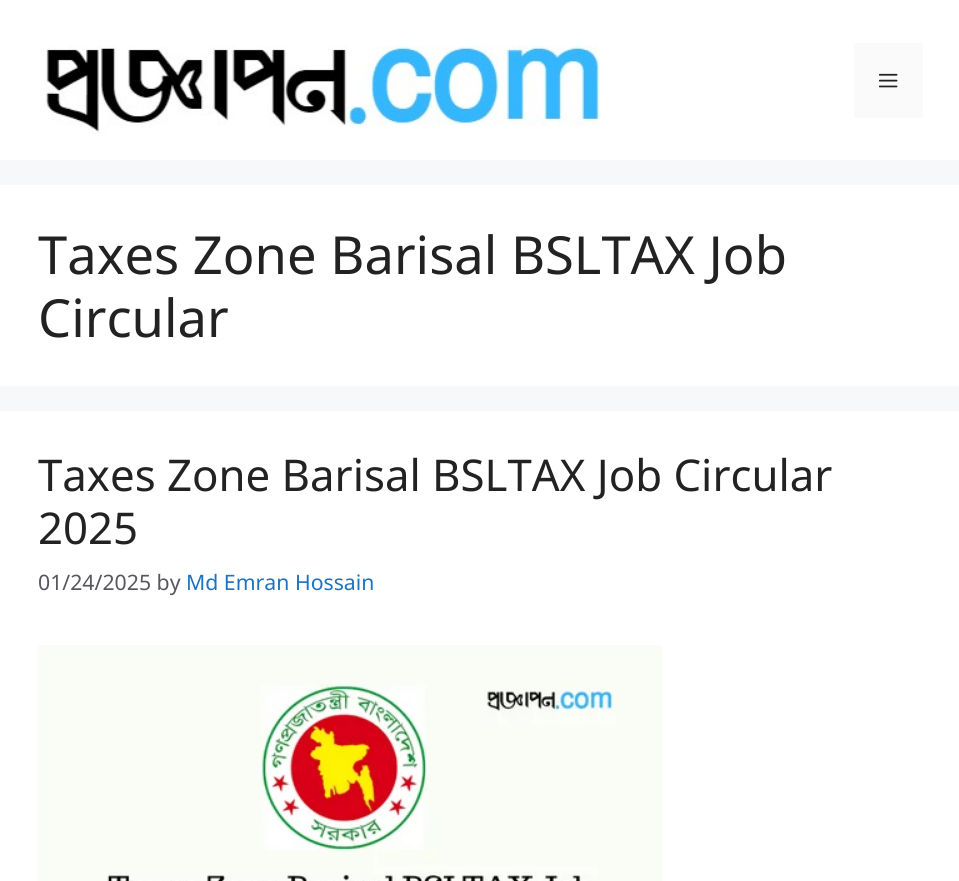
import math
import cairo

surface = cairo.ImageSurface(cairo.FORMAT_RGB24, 959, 881)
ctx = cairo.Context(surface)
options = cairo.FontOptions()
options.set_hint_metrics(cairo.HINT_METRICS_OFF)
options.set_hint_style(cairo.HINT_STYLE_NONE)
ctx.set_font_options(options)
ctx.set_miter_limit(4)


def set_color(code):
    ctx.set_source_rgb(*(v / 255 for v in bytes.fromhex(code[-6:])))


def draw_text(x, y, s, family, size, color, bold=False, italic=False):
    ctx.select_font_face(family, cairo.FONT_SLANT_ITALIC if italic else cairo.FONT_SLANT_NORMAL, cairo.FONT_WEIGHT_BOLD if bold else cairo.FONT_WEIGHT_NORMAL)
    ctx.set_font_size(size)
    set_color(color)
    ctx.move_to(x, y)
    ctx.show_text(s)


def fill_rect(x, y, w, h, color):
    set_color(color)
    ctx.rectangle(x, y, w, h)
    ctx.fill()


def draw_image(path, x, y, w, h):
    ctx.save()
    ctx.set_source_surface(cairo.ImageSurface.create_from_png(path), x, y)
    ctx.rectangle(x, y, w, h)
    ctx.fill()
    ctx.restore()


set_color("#f7f8f9")
ctx.paint()
fill_rect(0, 0, 959, 160, "#ffffff")
draw_image("assets/img1.png", 44, 45, 556, 89)
fill_rect(854, 43, 69, 75, "#fafafa")
draw_image("assets/img2.png", 879, 73, 19, 15)
fill_rect(0, 185, 959, 201, "#ffffff")
draw_text(38, 274, "Taxes Zone Barisal BSLTAX Job", "Noto Sans", 52.5, "#222222")
draw_text(38, 337, "Circular", "Noto Sans", 52.5, "#222222")
fill_rect(0, 411, 959, 470, "#ffffff")
draw_text(38, 491, "Taxes Zone Barisal BSLTAX Job Circular", "Noto Sans", 43.75, "#222222")
draw_text(38, 544, "2025", "Noto Sans", 43.75, "#222222")
draw_text(38, 590, "01/24/2025 by", "Noto Sans", 21.25, "#575760")
draw_text(186, 590, "Md Emran Hossain", "Noto Sans", 21.25, "#1e73be")
draw_image("assets/img3.png", 37, 645, 626, 236)
surface.write_to_png("output.png")
